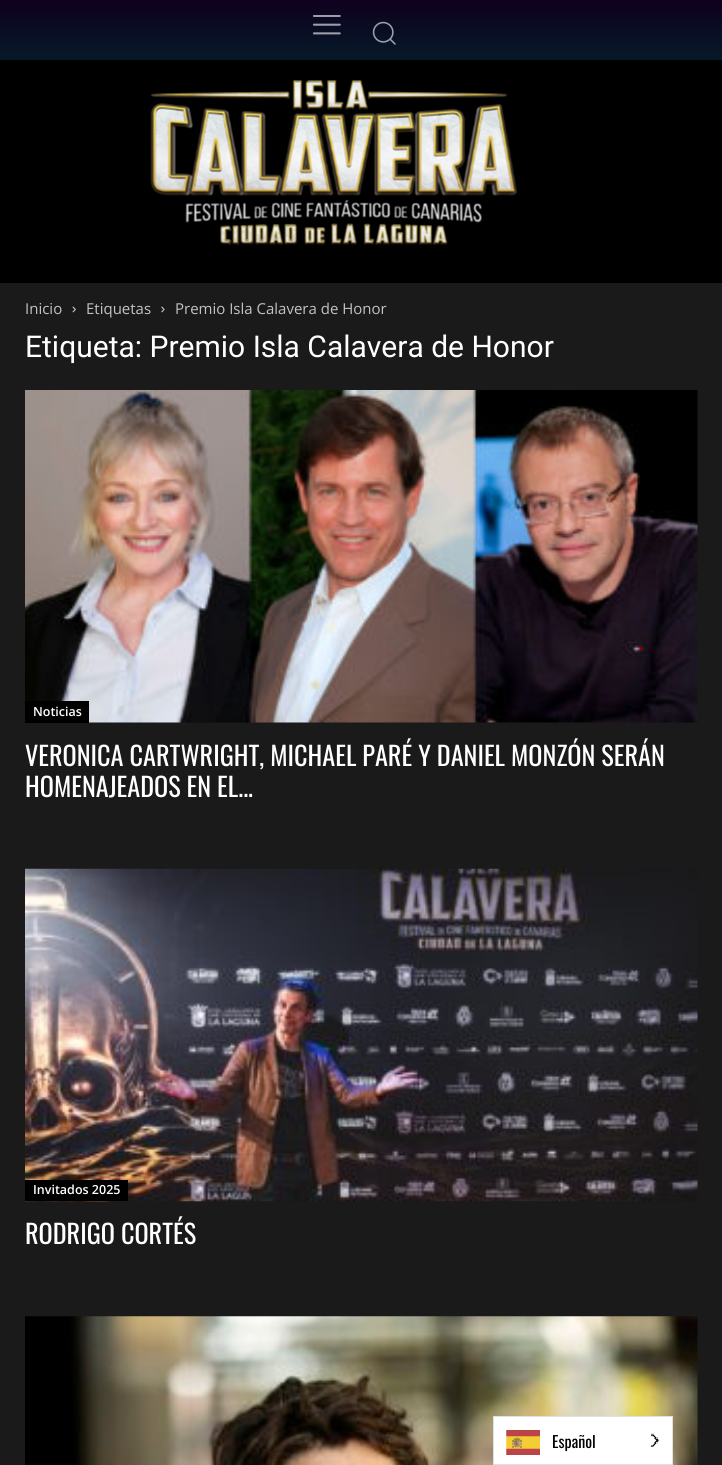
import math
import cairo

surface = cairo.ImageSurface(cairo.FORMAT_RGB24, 722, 1465)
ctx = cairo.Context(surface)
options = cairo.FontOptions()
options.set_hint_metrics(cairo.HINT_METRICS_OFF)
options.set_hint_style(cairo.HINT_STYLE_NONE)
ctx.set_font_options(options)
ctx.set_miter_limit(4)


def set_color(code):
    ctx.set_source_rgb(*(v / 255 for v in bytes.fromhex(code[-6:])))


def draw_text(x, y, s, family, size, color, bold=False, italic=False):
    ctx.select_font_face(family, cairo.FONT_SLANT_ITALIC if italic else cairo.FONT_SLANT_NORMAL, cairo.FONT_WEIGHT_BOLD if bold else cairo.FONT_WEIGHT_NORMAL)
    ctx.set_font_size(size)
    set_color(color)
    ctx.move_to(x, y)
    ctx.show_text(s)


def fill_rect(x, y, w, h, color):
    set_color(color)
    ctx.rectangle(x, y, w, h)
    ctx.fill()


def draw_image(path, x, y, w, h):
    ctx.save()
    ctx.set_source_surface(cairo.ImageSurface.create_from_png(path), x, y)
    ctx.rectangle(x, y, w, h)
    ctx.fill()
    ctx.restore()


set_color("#1a1a1a")
ctx.paint()
gradient = cairo.LinearGradient(361, 0, 361, 60)
gradient.add_color_stop_rgba(0, 0.059, 0, 0.118, 1)
gradient.add_color_stop_rgba(1, 0.02, 0.102, 0.161, 1)
ctx.set_source(gradient)
ctx.rectangle(0, 0, 722, 60)
ctx.fill()
draw_image("assets/img1.png", 313, 15, 28, 20)
draw_image("assets/img2.png", 372, 21, 24, 24)
fill_rect(0, 60, 722, 223, "#000000")
draw_image("assets/img3.png", 150, 80, 368, 165)
draw_text(25, 314, "Inicio", "Open Sans", 15, "#c3c3c3")
draw_image("assets/img4.png", 72, 306, 4, 7)
draw_text(86, 314, "Etiquetas", "Open Sans", 15, "#c3c3c3")
draw_image("assets/img5.png", 161, 306, 4, 7)
draw_text(175, 314, "Premio Isla Calavera de Honor", "Open Sans", 15, "#c3c3c3")
draw_text(25, 357, "Etiqueta: Premio Isla Calavera de Honor", "Roboto", 30, "#ffffff")
draw_image("assets/img6.png", 25, 390, 673, 333)
fill_rect(25, 701, 64, 22, "#000000")
draw_text(33, 716, "Noticias", "Open Sans SemiBold", 12.5, "#ffffff")
draw_text(25, 766, "VERONICA CARTWRIGHT, MICHAEL PARÉ Y DANIEL MONZÓN SERÁN", "Oswald", 26.25, "#ffffff")
draw_text(25, 797, "HOMENAJEADOS EN EL...", "Oswald", 26.25, "#ffffff")
draw_image("assets/img7.png", 25, 868, 673, 334)
fill_rect(25, 1180, 103, 21, "#000000")
draw_text(33, 1194, "Invitados 2025", "Open Sans SemiBold", 12.5, "#ffffff")
draw_text(25, 1244, "RODRIGO CORTÉS", "Oswald", 26.25, "#ffffff")
draw_image("assets/img8.png", 25, 1316, 673, 149)
ctx.rectangle(493.5, 1416.5, 179, 48)
ctx.fill_preserve()
set_color("#e0e0e0")
ctx.set_line_width(1)
ctx.stroke()
draw_image("assets/img9.png", 506, 1430, 34, 25)
draw_text(552, 1448, "Español", "Oswald", 16, "#000000")
draw_image("assets/img10.png", 651, 1433, 8, 14)
surface.write_to_png("output.png")
